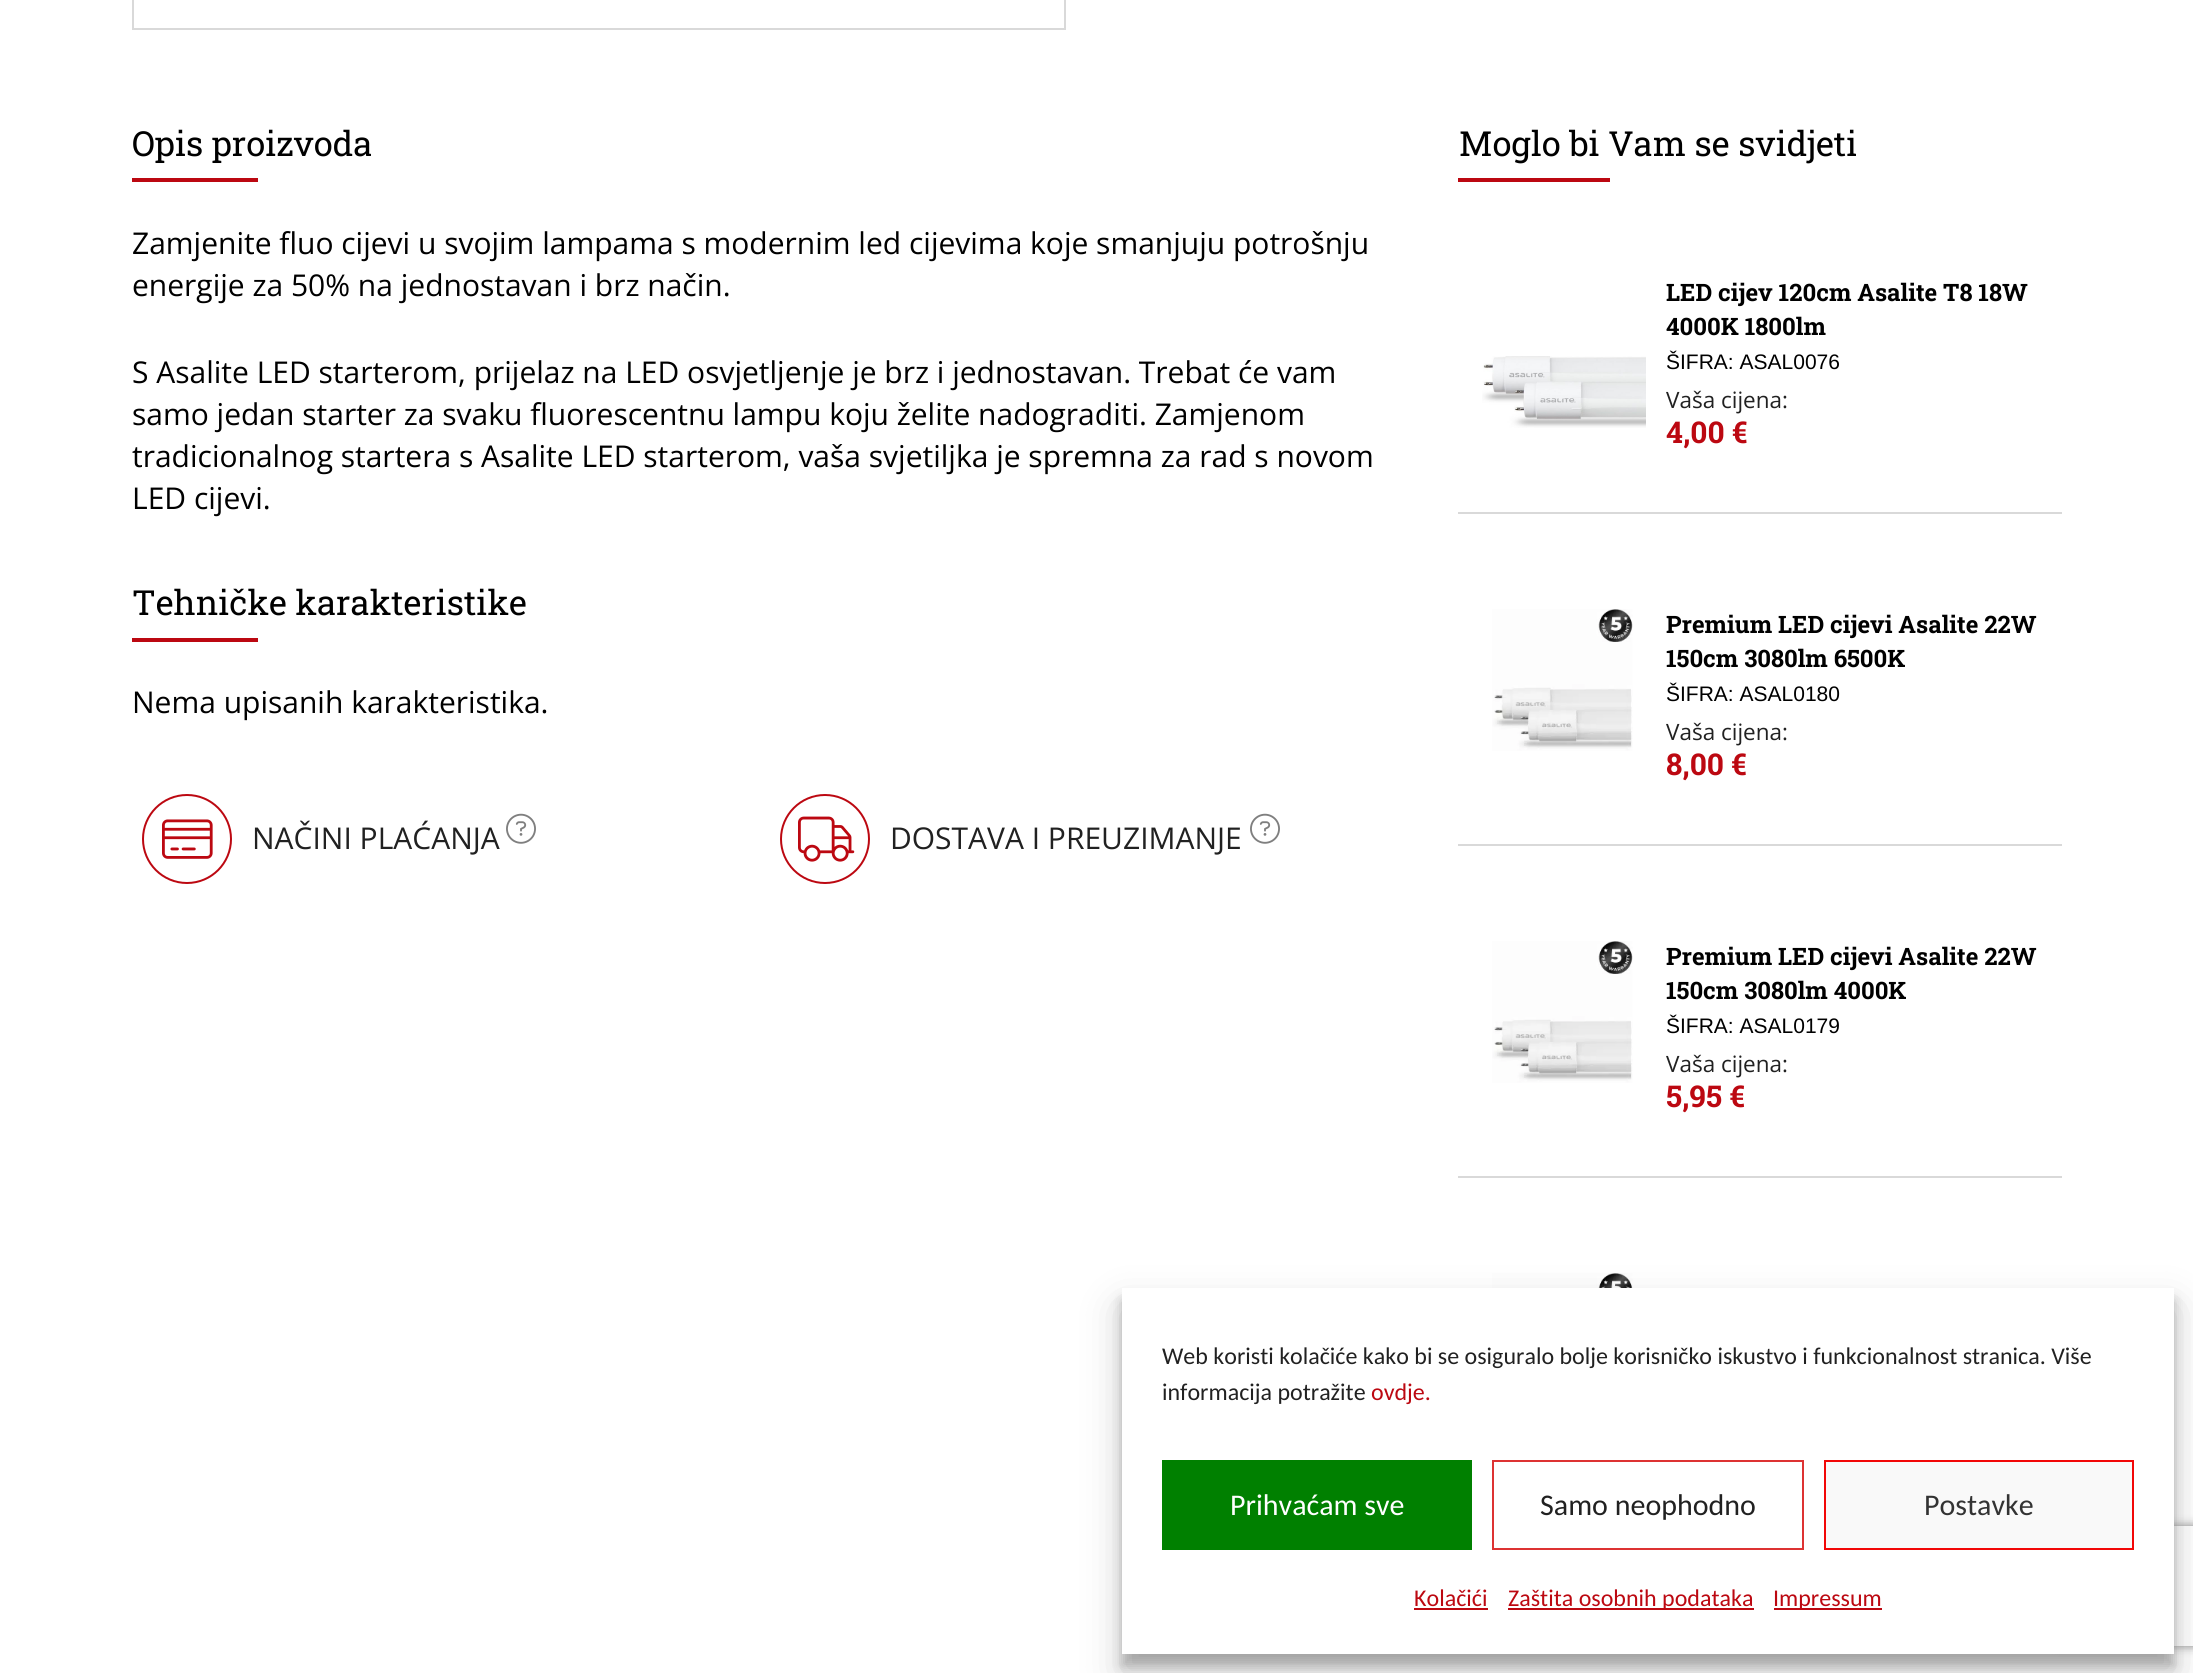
import math
import cairo

surface = cairo.ImageSurface(cairo.FORMAT_RGB24, 2193, 1673)
ctx = cairo.Context(surface)
options = cairo.FontOptions()
options.set_hint_metrics(cairo.HINT_METRICS_OFF)
options.set_hint_style(cairo.HINT_STYLE_NONE)
ctx.set_font_options(options)
ctx.set_miter_limit(4)


def set_color(code):
    ctx.set_source_rgb(*(v / 255 for v in bytes.fromhex(code[-6:])))


def draw_text(x, y, s, family, size, color, bold=False, italic=False):
    ctx.select_font_face(family, cairo.FONT_SLANT_ITALIC if italic else cairo.FONT_SLANT_NORMAL, cairo.FONT_WEIGHT_BOLD if bold else cairo.FONT_WEIGHT_NORMAL)
    ctx.set_font_size(size)
    set_color(color)
    ctx.move_to(x, y)
    ctx.show_text(s)


def fill_rect(x, y, w, h, color):
    set_color(color)
    ctx.rectangle(x, y, w, h)
    ctx.fill()


def rounded_rect(x, y, w, h, r):
    ctx.new_sub_path()
    for i, (u, v) in enumerate([(x + w - r, y + h - r), (x + r, y + h - r), (x + r, y + r), (x + w - r, y + r)]):
        ctx.arc(u, v, r, i * math.pi / 2, (i + 1) * math.pi / 2)
    ctx.close_path()


def draw_shadow(x, y, w, h, r, blur, alpha):
    ctx.push_group_with_content(cairo.CONTENT_ALPHA)
    ctx.set_operator(cairo.OPERATOR_SOURCE)
    for i in range(15, -16, -2):
        e = blur * i / 6
        if min(w, h) + 2 * e > 0:
            ctx.set_source_rgba(0, 0, 0, alpha * math.erfc((i - 1) / 8.5) / 2)
            rounded_rect(x - e, y - e, w + 2 * e, h + 2 * e, max(0, min(r + e + blur * .6, min(w, h) / 2 + e)))
            ctx.fill()
    ctx.mask(ctx.pop_group())


def draw_image(path, x, y, w, h):
    ctx.save()
    ctx.set_source_surface(cairo.ImageSurface.create_from_png(path), x, y)
    ctx.rectangle(x, y, w, h)
    ctx.fill()
    ctx.restore()


set_color("#ffffff")
ctx.paint()
ctx.rectangle(133, -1, 932, 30)
set_color("#d9d9d9")
ctx.stroke()
draw_text(132, 156, "Opis proizvoda", "Roboto Slab", 34.5, "#000000")
fill_rect(132, 178, 126, 4, "#bc0811")
draw_text(132, 254, "Zamjenite fluo cijevi u svojim lampama s modernim led cijevima koje smanjuju potrošnju", "Open Sans", 30, "#000000")
draw_text(132, 296, "energije za 50% na jednostavan i brz način.", "Open Sans", 30, "#000000")
draw_text(132, 383, "S Asalite LED starterom, prijelaz na LED osvjetljenje je brz i jednostavan. Trebat će vam", "Open Sans", 30, "#000000")
draw_text(132, 425, "samo jedan starter za svaku fluorescentnu lampu koju želite nadograditi. Zamjenom", "Open Sans", 30, "#000000")
draw_text(132, 467, "tradicionalnog startera s Asalite LED starterom, vaša svjetiljka je spremna za rad s novom", "Open Sans", 30, "#000000")
draw_text(132, 509, "LED cijevi.", "Open Sans", 30, "#000000")
draw_text(132, 615, "Tehničke karakteristike", "Roboto Slab", 34.5, "#000000")
fill_rect(132, 638, 126, 4, "#bc0811")
draw_text(132, 713, "Nema upisanih karakteristika.", "Open Sans", 30, "#000000")
ctx.new_path()
ctx.arc(187, 839, 44, 0, 2 * math.pi)
set_color("#bc0811")
ctx.stroke()
draw_image("assets/img1.png", 162, 819, 51, 40)
draw_text(252, 849, "NAČINI PLAĆANJA", "Open Sans", 30, "#212121")
draw_image("assets/img2.png", 506, 813, 30, 31)
ctx.arc(825, 839, 44, 0, 2 * math.pi)
set_color("#bc0811")
ctx.stroke()
draw_image("assets/img3.png", 798, 816, 57, 46)
draw_text(890, 849, "DOSTAVA I PREUZIMANJE", "Open Sans", 30, "#212121")
draw_image("assets/img2.png", 1250, 813, 30, 31)
draw_text(1459, 156, "Moglo bi Vam se svidjeti", "Roboto Slab", 34.5, "#000000")
fill_rect(1458, 178, 152, 4, "#bc0811")
fill_rect(1458, 512, 604, 2, "#d9d9d9")
draw_image("assets/img4.png", 1482, 356, 164, 72)
draw_text(1666, 301, "LED cijev 120cm Asalite T8 18W", "Roboto Slab", 24, "#000000", bold=True)
draw_text(1666, 335, "4000K 1800lm", "Roboto Slab", 24, "#000000", bold=True)
draw_text(1666, 369, "ŠIFRA: ASAL0076", "Liberation Sans", 21, "#000000")
draw_text(1666, 408, "Vaša cijena:", "Open Sans", 22.5, "#212121")
draw_text(1666, 443, "4,00 €", "Roboto Slab", 30, "#bc0811", bold=True)
fill_rect(1458, 844, 604, 2, "#d9d9d9")
draw_image("assets/img5.png", 1492, 609, 141, 142)
draw_text(1666, 633, "Premium LED cijevi Asalite 22W", "Roboto Slab", 24, "#000000", bold=True)
draw_text(1666, 667, "150cm 3080lm 6500K", "Roboto Slab", 24, "#000000", bold=True)
draw_text(1666, 701, "ŠIFRA: ASAL0180", "Liberation Sans", 21, "#000000")
draw_text(1666, 740, "Vaša cijena:", "Open Sans", 22.5, "#212121")
draw_text(1666, 775, "8,00 €", "Roboto Slab", 30, "#bc0811", bold=True)
fill_rect(1458, 1176, 604, 2, "#d9d9d9")
draw_image("assets/img5.png", 1492, 941, 141, 142)
draw_text(1666, 965, "Premium LED cijevi Asalite 22W", "Roboto Slab", 24, "#000000", bold=True)
draw_text(1666, 999, "150cm 3080lm 4000K", "Roboto Slab", 24, "#000000", bold=True)
draw_text(1666, 1033, "ŠIFRA: ASAL0179", "Liberation Sans", 21, "#000000")
draw_text(1666, 1072, "Vaša cijena:", "Open Sans", 22.5, "#212121")
draw_text(1666, 1107, "5,95 €", "Roboto Slab", 30, "#bc0811", bold=True)
draw_image("assets/img6.png", 1492, 1273, 141, 15)
set_color("#000000")
draw_shadow(1122, 1300, 1052, 366, 0, 6, 0.23)
draw_shadow(1122, 1308, 1052, 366, 0, 20, 0.19)
ctx.save()
ctx.set_fill_rule(cairo.FILL_RULE_EVEN_ODD)
ctx.new_path()
ctx.move_to(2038, 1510)
ctx.line_to(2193, 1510)
ctx.line_to(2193, 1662)
ctx.line_to(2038, 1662)
ctx.close_path()
ctx.move_to(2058, 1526)
ctx.line_to(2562, 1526)
ctx.curve_to(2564, 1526, 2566, 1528, 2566, 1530)
ctx.line_to(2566, 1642)
ctx.curve_to(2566, 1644, 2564, 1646, 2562, 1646)
ctx.line_to(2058, 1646)
ctx.curve_to(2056, 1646, 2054, 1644, 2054, 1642)
ctx.line_to(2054, 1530)
ctx.curve_to(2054, 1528, 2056, 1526, 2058, 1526)
ctx.close_path()
ctx.clip()
set_color("#808080")
draw_shadow(2054, 1526, 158, 120, 4, 5, 1)
ctx.restore()
fill_rect(1122, 1288, 1052, 366, "#ffffff")
draw_text(1162, 1364, "Web koristi kolačiće kako bi se osiguralo bolje korisničko iskustvo i funkcionalnost stranica. Više", "Carlito", 24, "#212121")
draw_text(1162, 1400, "informacija potražite", "Carlito", 24, "#212121")
draw_text(1371, 1400, "ovdje.", "Carlito", 24, "#bc0811")
fill_rect(1162, 1460, 310, 90, "#008000")
draw_text(1230, 1515, "Prihvaćam sve", "Carlito", 30, "#ffffff")
ctx.rectangle(1493, 1461, 310, 88)
set_color("#dd3333")
ctx.stroke()
draw_text(1540, 1515, "Samo neophodno", "Carlito", 30, "#212121")
set_color("#f9f9f9")
ctx.rectangle(1825, 1461, 308, 88)
ctx.fill_preserve()
set_color("#f20707")
ctx.stroke()
draw_text(1924, 1515, "Postavke", "Carlito", 30, "#333333")
draw_text(1414, 1606, "Kolačići", "Carlito", 24, "#bc0811")
fill_rect(1414, 1608, 74, 2, "#bc0811")
fill_rect(1508, 1608, 246, 2, "#bc0811")
draw_text(1508, 1606, "Zaštita osobnih podataka", "Carlito", 24, "#bc0811")
fill_rect(1774, 1608, 108, 2, "#bc0811")
draw_text(1773, 1606, "Impressum", "Carlito", 24, "#bc0811")
surface.write_to_png("output.png")
